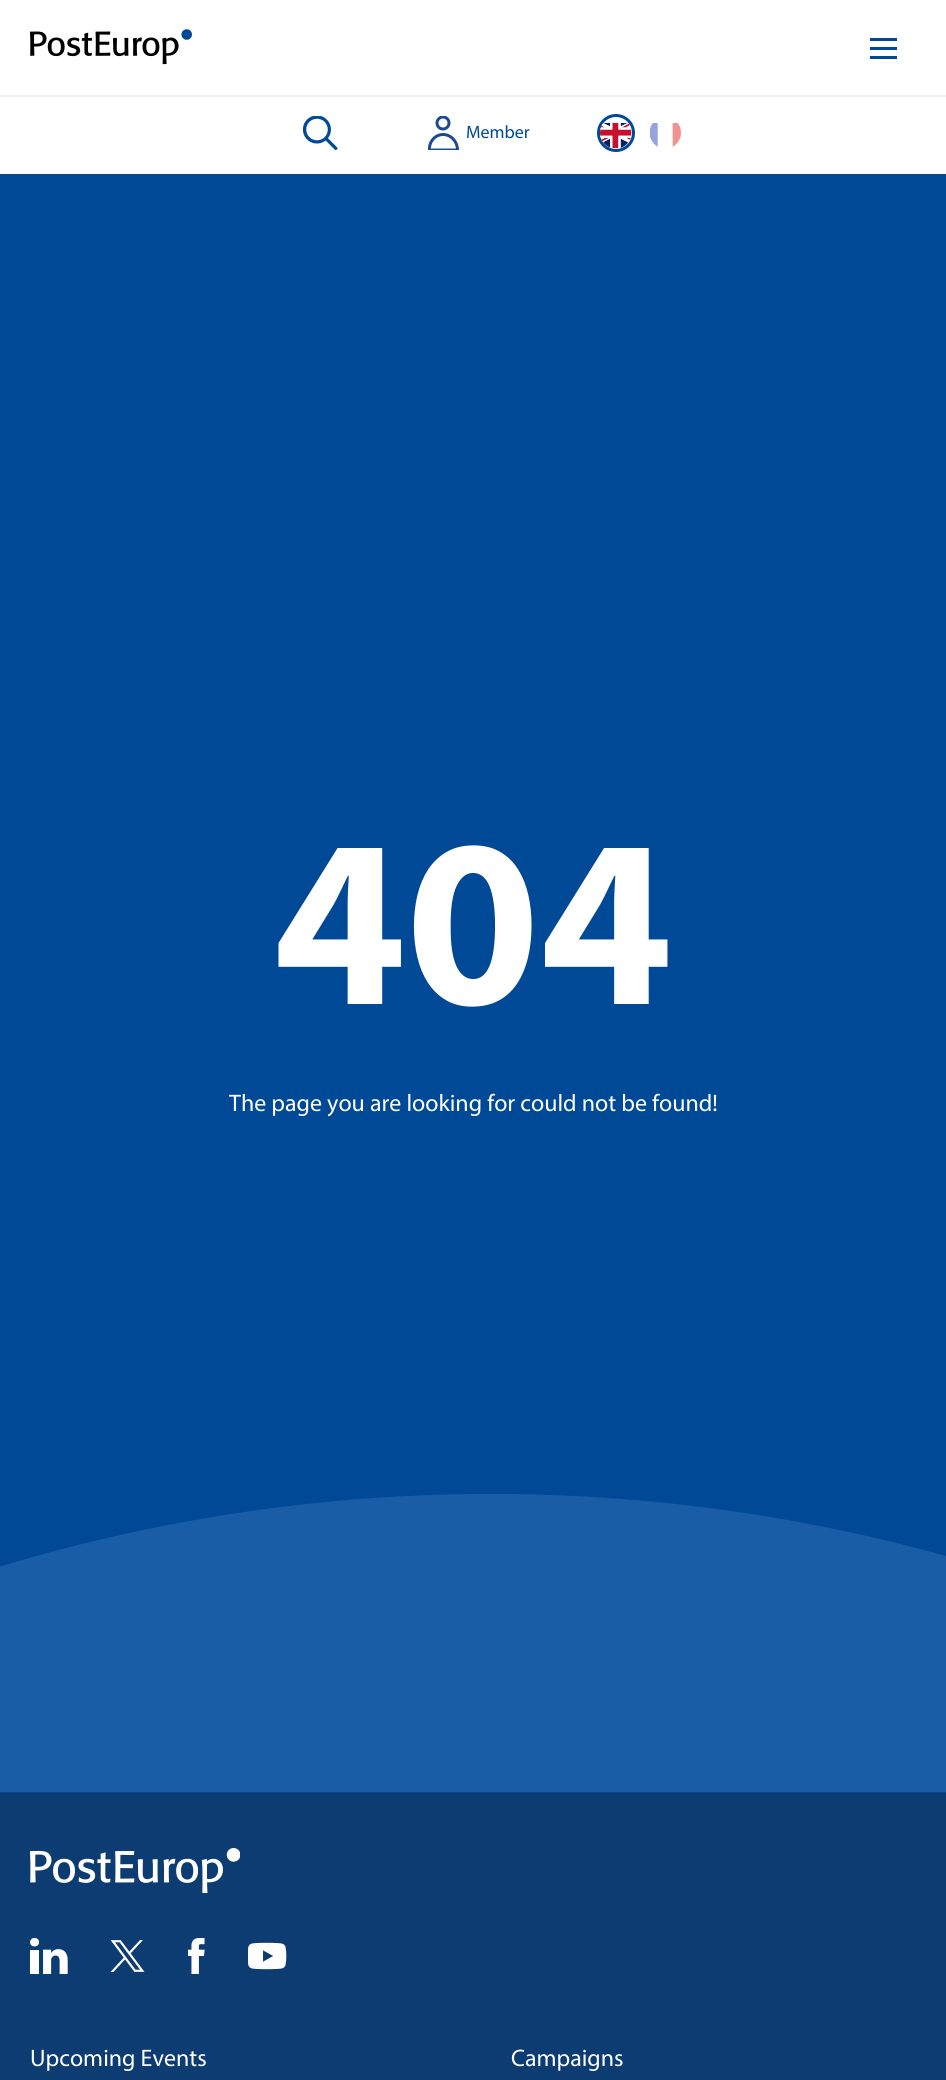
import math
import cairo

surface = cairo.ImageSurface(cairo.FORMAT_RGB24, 946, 2080)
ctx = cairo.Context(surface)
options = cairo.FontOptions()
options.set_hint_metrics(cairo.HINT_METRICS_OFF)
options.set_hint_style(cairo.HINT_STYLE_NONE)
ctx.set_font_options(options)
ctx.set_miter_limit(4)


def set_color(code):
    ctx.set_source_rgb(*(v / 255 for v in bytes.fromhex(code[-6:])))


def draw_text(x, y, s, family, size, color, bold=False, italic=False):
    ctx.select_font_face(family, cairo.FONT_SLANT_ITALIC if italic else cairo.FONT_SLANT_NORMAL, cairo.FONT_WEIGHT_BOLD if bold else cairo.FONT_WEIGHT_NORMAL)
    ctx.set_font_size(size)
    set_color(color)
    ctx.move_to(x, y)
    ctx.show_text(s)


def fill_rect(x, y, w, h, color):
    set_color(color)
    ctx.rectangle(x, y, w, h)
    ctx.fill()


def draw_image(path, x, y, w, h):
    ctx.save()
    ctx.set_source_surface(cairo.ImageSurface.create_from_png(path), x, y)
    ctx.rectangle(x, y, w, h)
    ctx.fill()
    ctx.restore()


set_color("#ffffff")
ctx.paint()
draw_image("assets/img1.png", 30, 29, 162, 36)
fill_rect(870, 47, 27, 3, "#004997")
fill_rect(870, 38, 27, 3, "#004997")
fill_rect(870, 56, 27, 3, "#004997")
fill_rect(0, 95, 946, 2, "#f1f1f1")
draw_image("assets/img2.png", 303, 116, 35, 34)
ctx.save()
ctx.rectangle(428, 116, 31, 34)
ctx.clip()
ctx.arc(443, 123, 6, 0, 2 * math.pi)
set_color("#1d4992")
ctx.set_line_width(3)
ctx.stroke()
ctx.new_path()
ctx.move_to(443, 134.5)
ctx.curve_to(451, 134.5, 457.5, 141.5, 457.5, 150)
ctx.line_to(429, 150)
ctx.line_to(429.5, 147)
ctx.curve_to(430.5, 140, 436, 134.5, 443, 134.5)
ctx.close_path()
ctx.set_line_cap(cairo.LINE_CAP_ROUND)
ctx.set_line_join(cairo.LINE_JOIN_ROUND)
ctx.stroke()
ctx.restore()
draw_text(466, 138, "Member", "Myriad", 18, "#004997")
ctx.new_path()
ctx.arc(616, 133, 17.5, 0, 2 * math.pi)
ctx.set_line_width(3)
ctx.stroke()
draw_image("assets/img3.png", 600, 123, 32, 25)
draw_image("assets/img4.png", 650, 123, 31, 24)
fill_rect(0, 174, 946, 1619, "#004997")
draw_text(273, 1004, "404", "Myriad", 240, "#ffffff", bold=True)
draw_text(229, 1111, "The page you are looking for could not be found!", "Myriad", 24, "#ffffff")
ctx.save()
ctx.rectangle(0, 1494, 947, 299)
ctx.clip()
set_color("#195da7")
ctx.new_path()
ctx.move_to(-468, 1792)
ctx.curve_to(-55, 1507, 464, 1422, 946, 1556)
ctx.line_to(946, 1792)
ctx.close_path()
ctx.fill()
ctx.restore()
fill_rect(0, 1793, 946, 287, "#0c3c71")
draw_image("assets/img5.png", 30, 1848, 210, 45)
draw_image("assets/img6.png", 30, 1938, 38, 36)
draw_image("assets/img7.png", 110, 1940, 35, 32)
draw_image("assets/img8.png", 188, 1938, 17, 36)
draw_image("assets/img9.png", 248, 1942, 39, 28)
draw_text(30, 2066, "Upcoming Events", "Myriad", 24, "#ffffff")
draw_text(511, 2066, "Campaigns", "Myriad", 24, "#ffffff")
surface.write_to_png("output.png")
